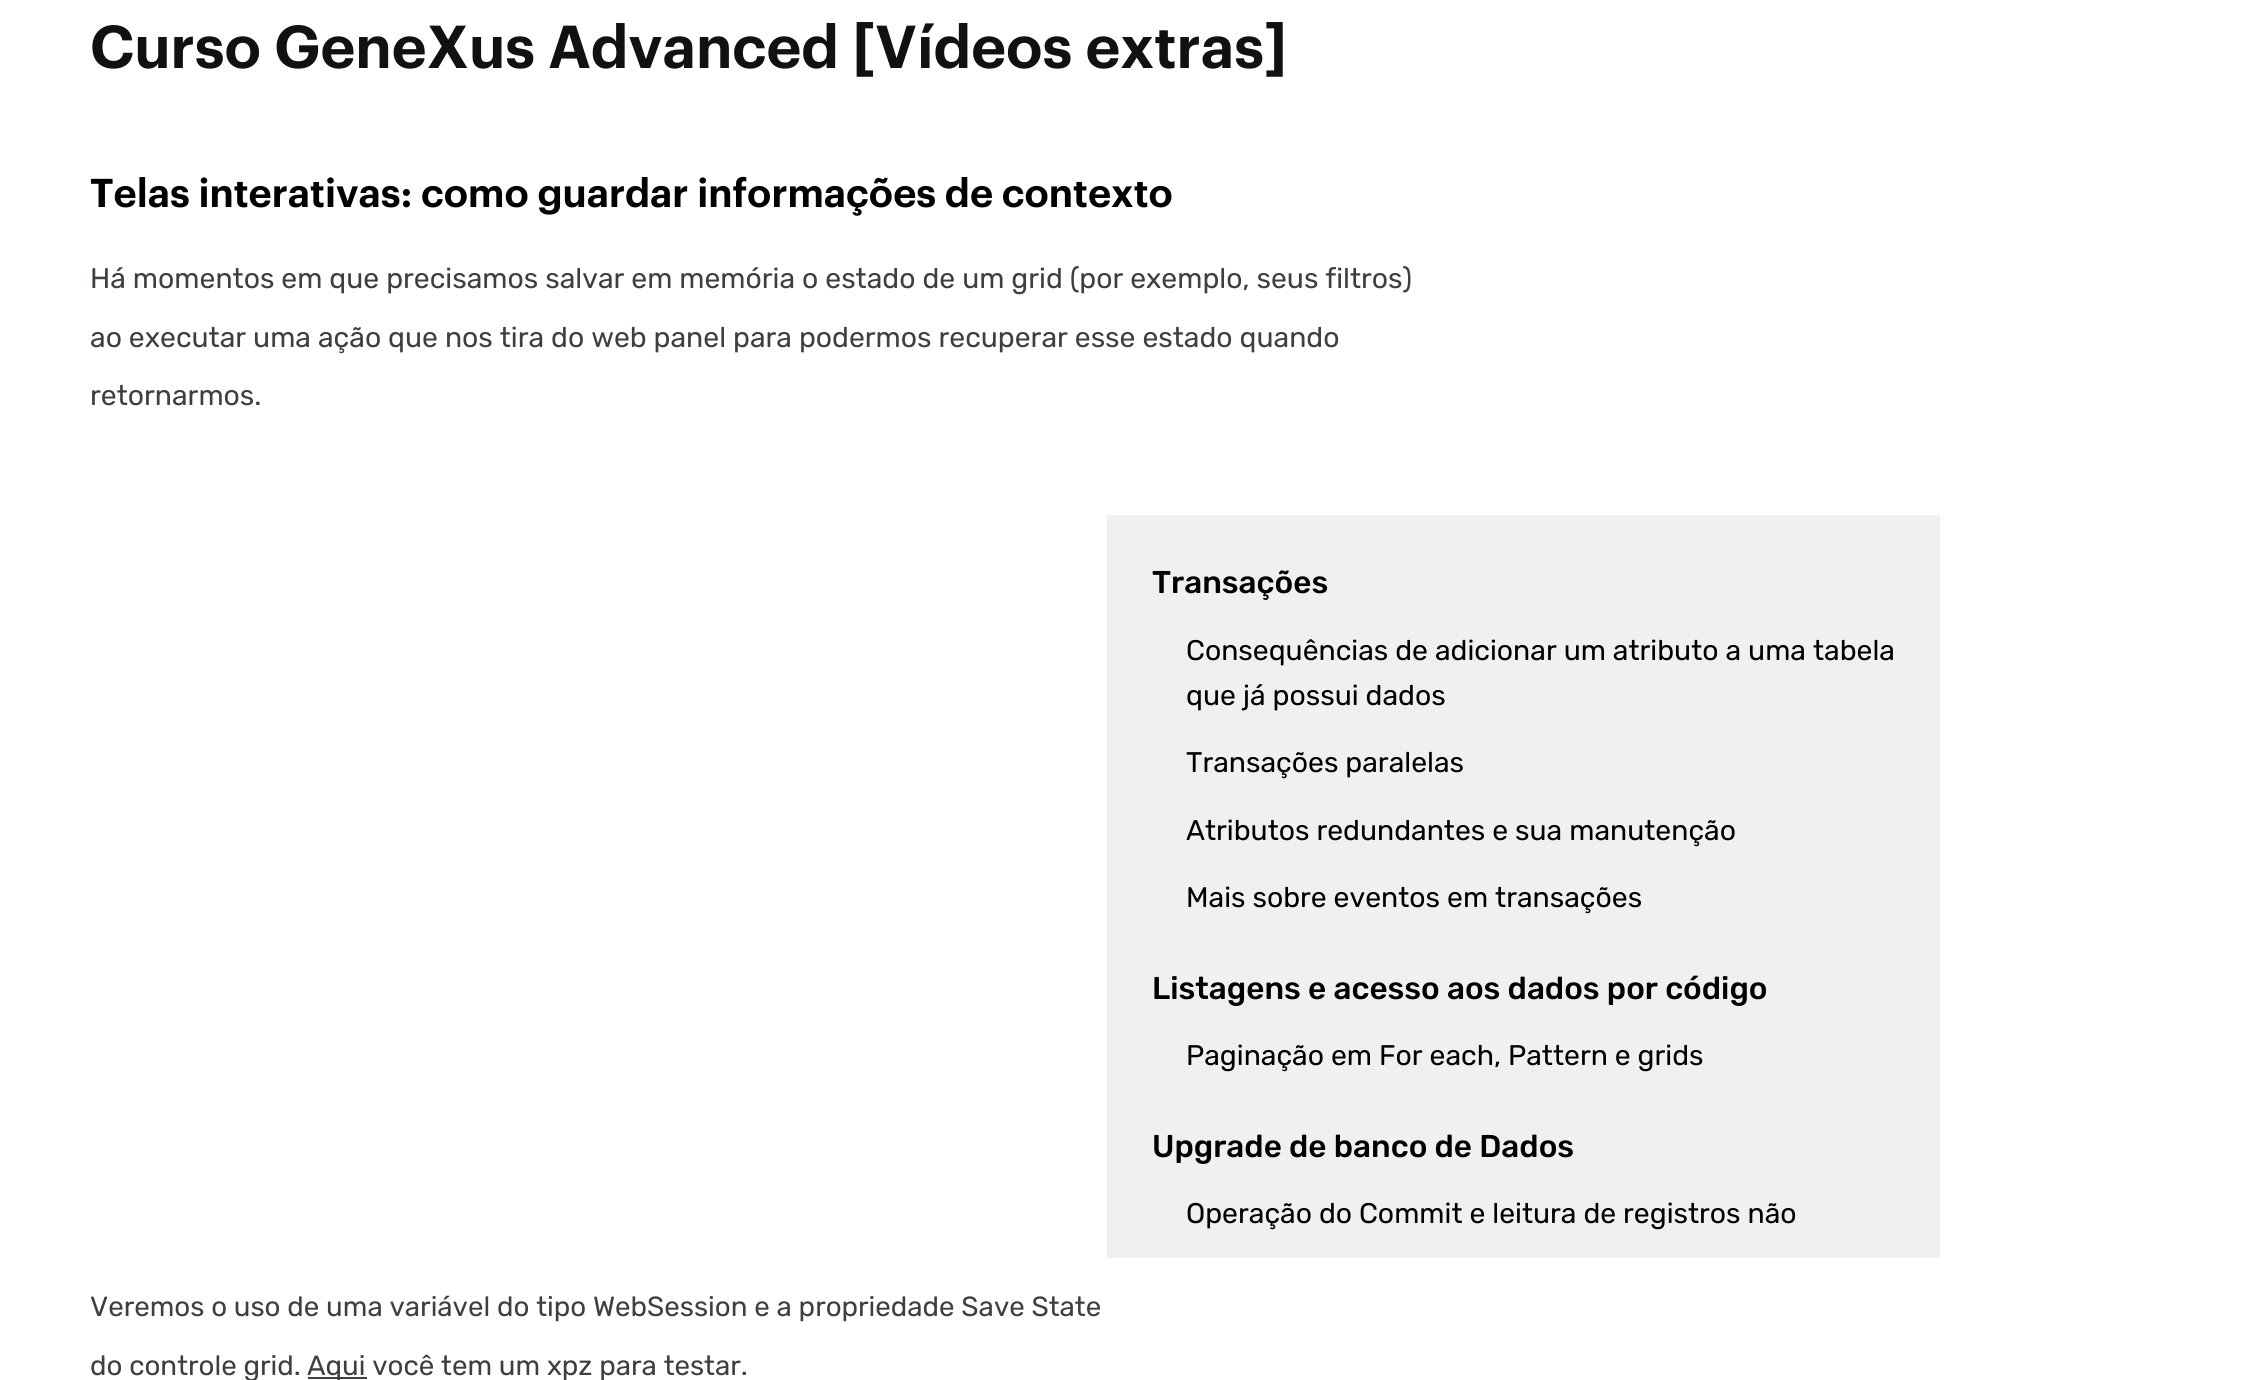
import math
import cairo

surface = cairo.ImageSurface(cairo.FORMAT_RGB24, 2259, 1380)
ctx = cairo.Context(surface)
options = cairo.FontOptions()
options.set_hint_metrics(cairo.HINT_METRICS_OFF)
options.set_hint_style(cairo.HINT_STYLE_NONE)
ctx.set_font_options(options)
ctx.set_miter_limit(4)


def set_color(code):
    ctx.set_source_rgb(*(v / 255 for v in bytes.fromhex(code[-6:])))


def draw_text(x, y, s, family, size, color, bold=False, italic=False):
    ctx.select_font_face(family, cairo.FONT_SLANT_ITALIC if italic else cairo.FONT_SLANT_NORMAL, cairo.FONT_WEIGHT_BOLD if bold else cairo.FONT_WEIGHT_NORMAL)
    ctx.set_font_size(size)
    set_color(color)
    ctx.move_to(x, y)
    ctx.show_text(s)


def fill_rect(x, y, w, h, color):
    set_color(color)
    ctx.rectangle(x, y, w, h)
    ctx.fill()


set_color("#ffffff")
ctx.paint()
draw_text(90, 68, "Curso GeneXus Advanced [Vídeos extras]", "Graphik SemiBold", 59.25, "#111111")
draw_text(90, 207, "Telas interativas: como guardar informações de contexto", "Graphik SemiBold", 39.4, "#000000")
draw_text(90, 288, "Há momentos em que precisamos salvar em memória o estado de um grid (por exemplo, seus filtros)", "Rubik", 28.35, "#3d3f40")
draw_text(90, 347, "ao executar uma ação que nos tira do web panel para podermos recuperar esse estado quando", "Rubik", 28.35, "#3d3f40")
draw_text(90, 405, "retornarmos.", "Rubik", 28.35, "#3d3f40")
fill_rect(1107, 515, 833, 743, "#f0f0f0")
draw_text(1152, 593, "Transações", "Rubik Medium", 31.5, "#000000")
draw_text(1186, 660, "Consequências de adicionar um atributo a uma tabela", "Rubik", 28.35, "#000000")
draw_text(1186, 705, "que já possui dados", "Rubik", 28.35, "#000000")
draw_text(1186, 772, "Transações paralelas", "Rubik", 28.35, "#000000")
draw_text(1186, 840, "Atributos redundantes e sua manutenção", "Rubik", 28.35, "#000000")
draw_text(1186, 907, "Mais sobre eventos em transações", "Rubik", 28.35, "#000000")
draw_text(1152, 999, "Listagens e acesso aos dados por código", "Rubik Medium", 31.5, "#000000")
draw_text(1186, 1065, "Paginação em For each, Pattern e grids", "Rubik", 28.35, "#000000")
draw_text(1152, 1157, "Upgrade de banco de Dados", "Rubik Medium", 31.5, "#000000")
draw_text(1186, 1223, "Operação do Commit e leitura de registros não", "Rubik", 28.35, "#000000")
draw_text(90, 1316, "Veremos o uso de uma variável do tipo WebSession e a propriedade Save State", "Rubik", 27.7, "#3d3f40")
draw_text(90, 1375, "do controle grid.", "Rubik", 27.7, "#3d3f40")
fill_rect(308, 1377, 59, 2, "#3d3f40")
draw_text(307, 1375, "Aqui você tem um xpz para testar.", "Rubik", 27.7, "#3d3f40")
surface.write_to_png("output.png")
